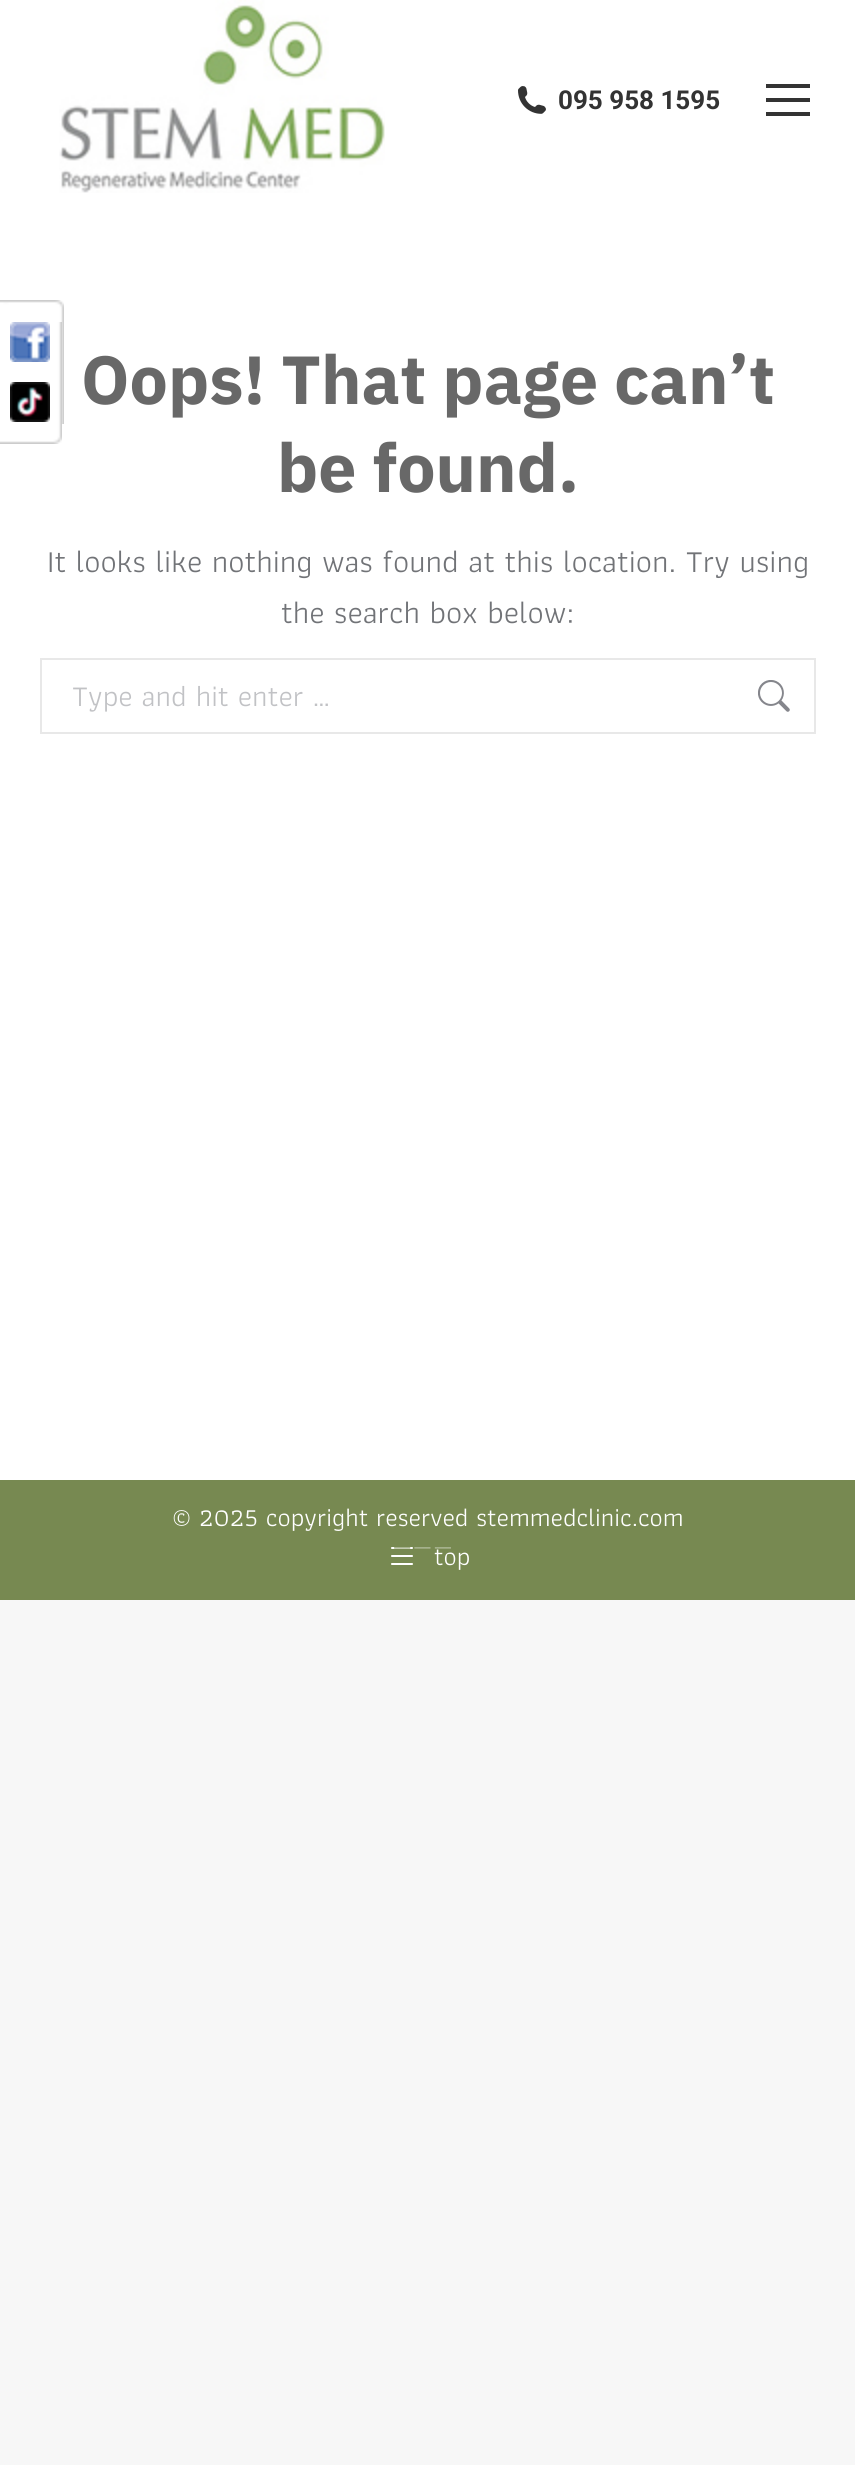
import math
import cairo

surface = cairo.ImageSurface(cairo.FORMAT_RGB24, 855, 2465)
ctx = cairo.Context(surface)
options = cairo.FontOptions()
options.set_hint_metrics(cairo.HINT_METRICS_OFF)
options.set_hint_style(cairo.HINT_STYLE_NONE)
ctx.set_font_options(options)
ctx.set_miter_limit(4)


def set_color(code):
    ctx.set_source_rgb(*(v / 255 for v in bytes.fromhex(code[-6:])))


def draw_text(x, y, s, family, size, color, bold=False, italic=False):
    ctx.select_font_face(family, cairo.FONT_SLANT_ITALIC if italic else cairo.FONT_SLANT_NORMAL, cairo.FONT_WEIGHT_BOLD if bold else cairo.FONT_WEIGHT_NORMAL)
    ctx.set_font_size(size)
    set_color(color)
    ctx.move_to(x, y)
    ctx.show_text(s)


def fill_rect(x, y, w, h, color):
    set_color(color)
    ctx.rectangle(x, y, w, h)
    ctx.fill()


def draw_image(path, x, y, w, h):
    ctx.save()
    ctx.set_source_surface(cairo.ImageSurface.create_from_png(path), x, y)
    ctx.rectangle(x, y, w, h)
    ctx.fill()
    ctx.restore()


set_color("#f7f7f7")
ctx.paint()
fill_rect(0, 0, 855, 1480, "#ffffff")
draw_image("assets/img1.png", 0, 300, 64, 124)
draw_image("assets/img2.png", 0, 322, 62, 122)
draw_image("assets/img3.png", 10, 322, 40, 40)
draw_image("assets/img4.png", 10, 382, 40, 40)
draw_image("assets/img5.png", 59, 0, 326, 193)
draw_image("assets/img6.png", 518, 86, 28, 28)
draw_text(558, 109, "095 958 1595", "Roboto", 26, "#333333", bold=True)
fill_rect(766, 84, 44, 4, "#333333")
fill_rect(766, 98, 44, 4, "#333333")
fill_rect(766, 112, 44, 4, "#333333")
draw_text(81, 404, "Oops! That page can’t", "IBM Plex Sans Thai", 68, "#686868", bold=True)
draw_text(277, 492, "be found.", "IBM Plex Sans Thai", 68, "#686868", bold=True)
draw_text(47, 572, "It looks like nothing was found at this location. Try using", "Athiti", 32, "#717377")
draw_text(281, 623, "the search box below:", "Athiti", 32, "#717377")
ctx.rectangle(41, 659, 774, 74)
set_color("#e8e8e8")
ctx.stroke()
draw_text(72, 706, "Type and hit enter …", "Athiti", 30, "#c1c2c5")
draw_image("assets/img7.png", 758, 680, 32, 32)
fill_rect(0, 1480, 855, 120, "#778951")
draw_text(172, 1526, "© 2025 copyright reserved stemmedclinic.com", "Athiti", 26, "#ffffff")
draw_image("assets/img8.png", 391, 1547, 22, 18)
draw_text(392, 1556, "———", "Athiti", 30, "#a6b28d")
draw_text(434, 1565, "top", "Athiti", 26, "#ffffff")
surface.write_to_png("output.png")
